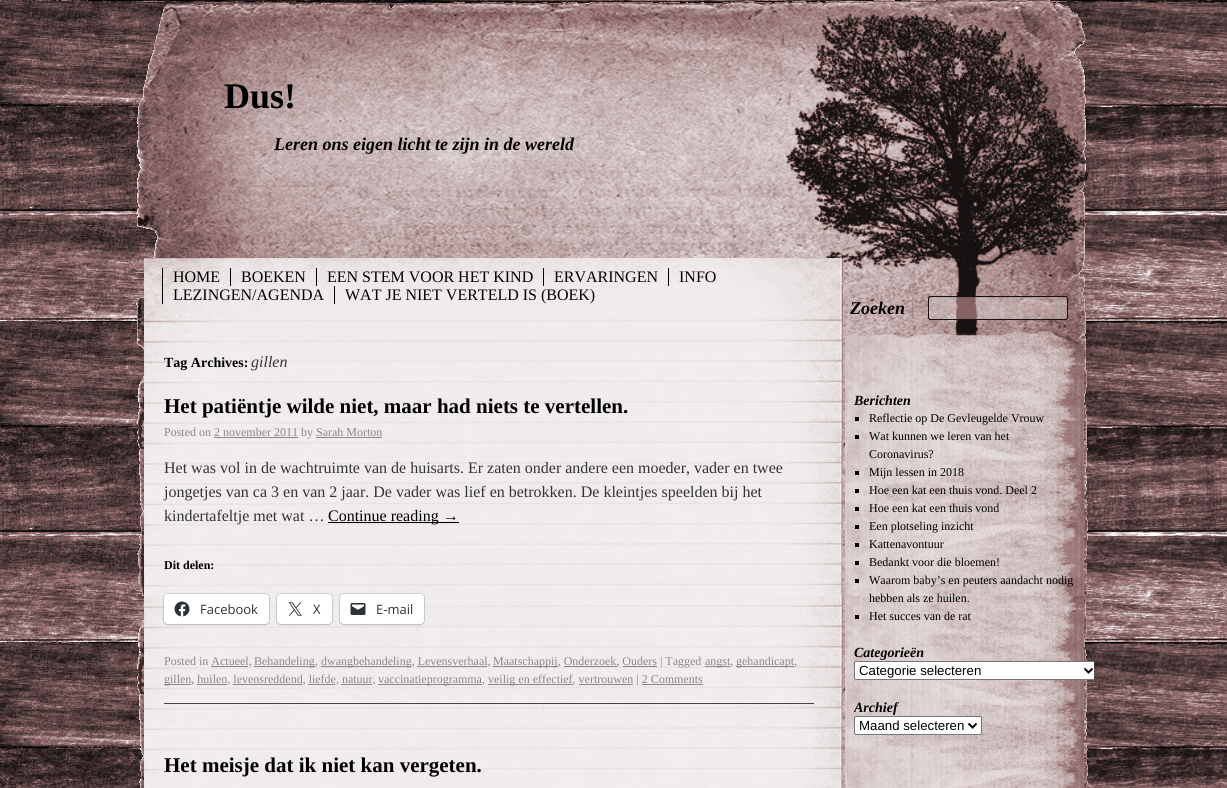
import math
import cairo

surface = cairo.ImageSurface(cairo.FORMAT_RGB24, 1227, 788)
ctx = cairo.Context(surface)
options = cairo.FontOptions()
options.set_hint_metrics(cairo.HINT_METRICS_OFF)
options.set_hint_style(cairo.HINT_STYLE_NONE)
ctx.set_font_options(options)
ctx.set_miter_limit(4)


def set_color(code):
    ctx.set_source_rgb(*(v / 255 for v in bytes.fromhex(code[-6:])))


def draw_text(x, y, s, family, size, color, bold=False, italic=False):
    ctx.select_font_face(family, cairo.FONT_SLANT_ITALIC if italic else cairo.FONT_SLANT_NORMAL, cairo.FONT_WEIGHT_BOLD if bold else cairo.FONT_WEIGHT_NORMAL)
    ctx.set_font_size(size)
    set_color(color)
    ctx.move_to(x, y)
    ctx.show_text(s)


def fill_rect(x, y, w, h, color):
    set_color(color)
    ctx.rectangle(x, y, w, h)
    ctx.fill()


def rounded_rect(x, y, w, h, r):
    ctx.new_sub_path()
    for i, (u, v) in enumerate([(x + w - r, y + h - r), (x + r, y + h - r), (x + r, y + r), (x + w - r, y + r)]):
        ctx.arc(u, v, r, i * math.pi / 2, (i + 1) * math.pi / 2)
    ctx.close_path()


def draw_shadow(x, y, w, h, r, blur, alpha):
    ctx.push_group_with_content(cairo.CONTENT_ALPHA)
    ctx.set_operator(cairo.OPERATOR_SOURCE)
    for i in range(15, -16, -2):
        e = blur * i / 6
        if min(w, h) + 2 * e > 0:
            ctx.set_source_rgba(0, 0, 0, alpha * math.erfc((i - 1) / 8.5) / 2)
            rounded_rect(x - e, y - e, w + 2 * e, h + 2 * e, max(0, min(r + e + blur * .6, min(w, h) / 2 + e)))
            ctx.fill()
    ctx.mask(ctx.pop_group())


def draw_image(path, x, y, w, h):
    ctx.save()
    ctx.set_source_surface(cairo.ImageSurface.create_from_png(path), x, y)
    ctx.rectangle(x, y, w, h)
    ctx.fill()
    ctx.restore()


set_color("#ffffff")
ctx.paint()
draw_image("assets/img1.png", 0, 0, 1227, 788)
draw_image("assets/img2.png", 136, 0, 952, 351)
draw_text(224, 108, "Dus!", "Liberation Serif", 36, "#000000", bold=True)
draw_text(274, 150, "Leren ons eigen licht te zijn in de wereld", "Liberation Serif", 18, "#000000", bold=True, italic=True)
fill_rect(162, 268, 1, 36, "#000000")
draw_text(173, 282, "HOME", "Liberation Serif", 16, "#000000")
fill_rect(230, 268, 1, 18, "#000000")
draw_text(241, 282, "BOEKEN", "Liberation Serif", 16, "#000000")
fill_rect(316, 268, 1, 18, "#000000")
draw_text(327, 282, "EEN STEM VOOR HET KIND", "Liberation Serif", 16, "#000000")
fill_rect(543, 268, 1, 18, "#000000")
draw_text(554, 282, "ERVARINGEN", "Liberation Serif", 16, "#000000")
fill_rect(668, 268, 1, 18, "#000000")
draw_text(679, 282, "INFO", "Liberation Serif", 16, "#000000")
draw_text(173, 300, "LEZINGEN/AGENDA", "Liberation Serif", 16, "#000000")
fill_rect(334, 286, 1, 18, "#000000")
draw_text(345, 300, "WAT JE NIET VERTELD IS (BOEK)", "Liberation Serif", 16, "#000000")
draw_text(850, 314, "Zoeken", "Liberation Serif", 18, "#000000", bold=True, italic=True)
ctx.save()
ctx.rectangle(912, 297, 134, 22)
ctx.clip()
ctx.set_source_rgba(0, 0, 0, 0.1)
ctx.set_fill_rule(cairo.FILL_RULE_EVEN_ODD)
ctx.new_path()
ctx.move_to(813, 198)
ctx.line_to(1145, 198)
ctx.line_to(1145, 418)
ctx.line_to(813, 418)
ctx.close_path()
ctx.move_to(913, 298)
ctx.line_to(1047, 298)
ctx.line_to(1047, 320)
ctx.line_to(913, 320)
ctx.close_path()
ctx.fill()
ctx.restore()
draw_image("assets/img3.png", 137, 351, 951, 437)
draw_text(164, 367, "Tag Archives:", "Liberation Serif", 14, "#000000", bold=True)
draw_text(251, 367, "gillen", "Liberation Serif", 16, "#333333", italic=True)
fill_rect(164, 703, 650, 1, "#464646")
draw_text(164, 413, "Het patiëntje wilde niet, maar had niets te vertellen.", "Liberation Serif", 21, "#000000", bold=True)
draw_text(164, 436, "Posted on 2 november 2011 by Sarah Morton", "Liberation Serif", 12, "#888888")
fill_rect(214, 437, 84, 1, "#888888")
fill_rect(316, 437, 66, 1, "#888888")
draw_text(164, 473, "Het was vol in de wachtruimte van de huisarts. Er zaten onder andere een moeder, vader en twee", "Liberation Serif", 16, "#333333")
draw_text(164, 497, "jongetjes van ca 3 en van 2 jaar. De vader was lief en betrokken. De kleintjes speelden bij het", "Liberation Serif", 16, "#333333")
draw_text(164, 521, "kindertafeltje met wat …", "Liberation Serif", 16, "#333333")
fill_rect(328, 522, 131, 1, "#000000")
draw_text(328, 521, "Continue reading →", "Liberation Serif", 16, "#000000")
draw_text(164, 569, "Dit delen:", "Liberation Serif", 12, "#000000", bold=True)
rounded_rect(163.5, 593.5, 106, 31, 4.5)
ctx.set_source_rgba(0, 0, 0, 0.12)
ctx.set_line_width(1)
ctx.stroke()
set_color("#000000")
draw_shadow(164, 595, 105, 30, 4, 1, 0.12)
set_color("#ffffff")
rounded_rect(164, 594, 105, 30, 4)
ctx.fill()
draw_image("assets/img4.png", 174, 601, 16, 16)
draw_text(200, 614, "Facebook", "Open Sans", 13, "#2c3338")
rounded_rect(276.5, 593.5, 56, 31, 4.5)
ctx.set_source_rgba(0, 0, 0, 0.12)
ctx.stroke()
set_color("#000000")
draw_shadow(277, 595, 55, 30, 4, 1, 0.12)
set_color("#ffffff")
rounded_rect(277, 594, 55, 30, 4)
ctx.fill()
draw_image("assets/img5.png", 288, 602, 14, 14)
draw_text(313, 614, "X", "Open Sans", 13, "#2c3338")
rounded_rect(339.5, 593.5, 85, 31, 4.5)
ctx.set_source_rgba(0, 0, 0, 0.12)
ctx.stroke()
set_color("#000000")
draw_shadow(340, 595, 84, 30, 4, 1, 0.12)
set_color("#ffffff")
rounded_rect(340, 594, 84, 30, 4)
ctx.fill()
draw_image("assets/img6.png", 350, 603, 16, 12)
draw_text(376, 614, "E-mail", "Open Sans", 13, "#2c3338")
draw_text(164, 665, "Posted in Actueel,", "Liberation Serif", 12, "#888888")
fill_rect(211, 666, 37, 1, "#888888")
fill_rect(254, 666, 61, 1, "#888888")
draw_text(254, 665, "Behandeling,", "Liberation Serif", 12, "#888888")
fill_rect(321, 666, 90, 1, "#888888")
draw_text(321, 665, "dwangbehandeling, Levensverhaal,", "Liberation Serif", 12, "#888888")
fill_rect(417, 666, 70, 1, "#888888")
fill_rect(493, 666, 65, 1, "#888888")
draw_text(493, 665, "Maatschappij, Onderzoek, Ouders | Tagged", "Liberation Serif", 12, "#888888")
fill_rect(564, 666, 53, 1, "#888888")
fill_rect(623, 666, 34, 1, "#888888")
fill_rect(705, 666, 25, 1, "#888888")
draw_text(705, 665, "angst,", "Liberation Serif", 12, "#888888")
fill_rect(736, 666, 58, 1, "#888888")
draw_text(736, 665, "gehandicapt,", "Liberation Serif", 12, "#888888")
fill_rect(164, 684, 27, 1, "#888888")
draw_text(164, 683, "gillen, huilen, levensreddend, liefde, natuur,", "Liberation Serif", 12, "#888888")
fill_rect(197, 684, 30, 1, "#888888")
fill_rect(233, 684, 69, 1, "#888888")
fill_rect(308, 684, 27, 1, "#888888")
fill_rect(341, 684, 31, 1, "#888888")
fill_rect(378, 684, 104, 1, "#888888")
draw_text(378, 683, "vaccinatieprogramma,", "Liberation Serif", 12, "#888888")
fill_rect(488, 684, 85, 1, "#888888")
draw_text(488, 683, "veilig en effectief, vertrouwen | 2 Comments", "Liberation Serif", 12, "#888888")
fill_rect(579, 684, 54, 1, "#888888")
fill_rect(642, 684, 61, 1, "#888888")
draw_text(164, 772, "Het meisje dat ik niet kan vergeten.", "Liberation Serif", 21, "#000000", bold=True)
draw_text(854, 405, "Berichten", "Liberation Serif", 14, "#000000", bold=True, italic=True)
fill_rect(855, 417, 4, 4, "#000000")
draw_text(869, 422, "Reflectie op De Gevleugelde Vrouw", "Liberation Serif", 12, "#000000")
fill_rect(855, 435, 4, 4, "#000000")
draw_text(869, 440, "Wat kunnen we leren van het", "Liberation Serif", 12, "#000000")
draw_text(869, 458, "Coronavirus?", "Liberation Serif", 12, "#000000")
fill_rect(855, 471, 4, 4, "#000000")
draw_text(869, 476, "Mijn lessen in 2018", "Liberation Serif", 12, "#000000")
fill_rect(855, 489, 4, 4, "#000000")
draw_text(869, 494, "Hoe een kat een thuis vond. Deel 2", "Liberation Serif", 12, "#000000")
fill_rect(855, 507, 4, 4, "#000000")
draw_text(869, 512, "Hoe een kat een thuis vond", "Liberation Serif", 12, "#000000")
fill_rect(855, 525, 4, 4, "#000000")
draw_text(869, 530, "Een plotseling inzicht", "Liberation Serif", 12, "#000000")
fill_rect(855, 543, 4, 4, "#000000")
draw_text(869, 548, "Kattenavontuur", "Liberation Serif", 12, "#000000")
fill_rect(855, 561, 4, 4, "#000000")
draw_text(869, 566, "Bedankt voor die bloemen!", "Liberation Serif", 12, "#000000")
fill_rect(855, 579, 4, 4, "#000000")
draw_text(869, 584, "Waarom baby’s en peuters aandacht nodig", "Liberation Serif", 12, "#000000")
draw_text(869, 602, "hebben als ze huilen.", "Liberation Serif", 12, "#000000")
fill_rect(855, 615, 4, 4, "#000000")
draw_text(869, 620, "Het succes van de rat", "Liberation Serif", 12, "#000000")
draw_text(854, 657, "Categorieën", "Liberation Serif", 14, "#000000", bold=True, italic=True)
set_color("#ffffff")
ctx.new_path()
ctx.move_to(856, 661)
ctx.line_to(1094, 661)
ctx.line_to(1094, 680)
ctx.line_to(856, 680)
ctx.curve_to(855, 680, 854, 679, 854, 678)
ctx.line_to(854, 663)
ctx.curve_to(854, 662, 855, 661, 856, 661)
ctx.close_path()
ctx.fill()
ctx.save()
ctx.rectangle(854, 351, 240, 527)
ctx.clip()
rounded_rect(854.5, 661.5, 243, 18, 1.5)
set_color("#767676")
ctx.stroke()
ctx.restore()
ctx.new_path()
ctx.move_to(1084.5, 668.5)
ctx.line_to(1088.5, 672.5)
ctx.line_to(1092.5, 668.5)
set_color("#000000")
ctx.set_line_width(2)
ctx.stroke()
draw_text(859, 675, "Categorie selecteren", "Liberation Sans", 13.25, "#000000")
ctx.save()
ctx.rectangle(854, 351, 240, 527)
ctx.clip()
draw_text(854, 712, "Archief", "Liberation Serif", 14, "#000000", bold=True, italic=True)
ctx.restore()
set_color("#ffffff")
rounded_rect(854.5, 716.5, 127, 18, 1.5)
ctx.fill_preserve()
set_color("#767676")
ctx.set_line_width(1)
ctx.stroke()
ctx.new_path()
ctx.move_to(968.5, 723.5)
ctx.line_to(972.5, 727.5)
ctx.line_to(976.5, 723.5)
set_color("#000000")
ctx.set_line_width(2)
ctx.stroke()
draw_text(859, 730, "Maand selecteren", "Liberation Sans", 13.25, "#000000")
surface.write_to_png("output.png")
